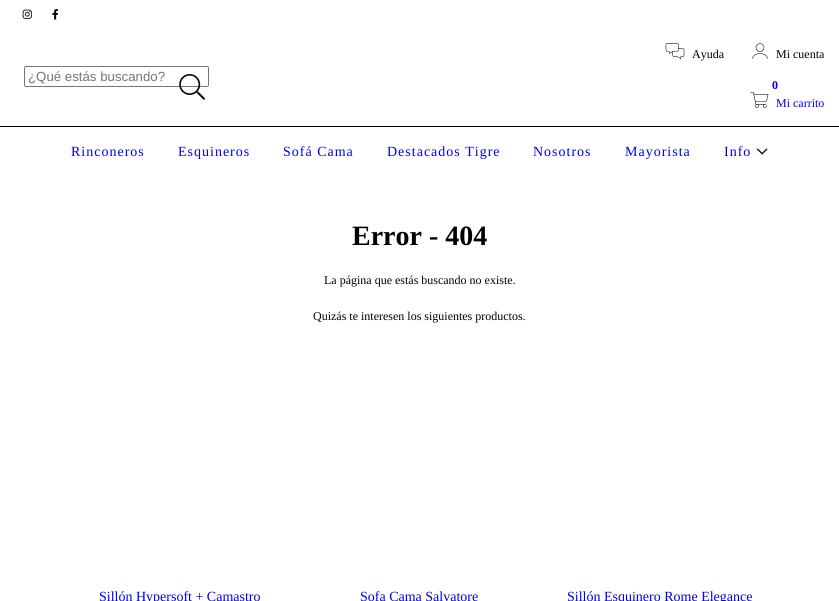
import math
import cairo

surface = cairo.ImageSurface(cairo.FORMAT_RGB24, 839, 601)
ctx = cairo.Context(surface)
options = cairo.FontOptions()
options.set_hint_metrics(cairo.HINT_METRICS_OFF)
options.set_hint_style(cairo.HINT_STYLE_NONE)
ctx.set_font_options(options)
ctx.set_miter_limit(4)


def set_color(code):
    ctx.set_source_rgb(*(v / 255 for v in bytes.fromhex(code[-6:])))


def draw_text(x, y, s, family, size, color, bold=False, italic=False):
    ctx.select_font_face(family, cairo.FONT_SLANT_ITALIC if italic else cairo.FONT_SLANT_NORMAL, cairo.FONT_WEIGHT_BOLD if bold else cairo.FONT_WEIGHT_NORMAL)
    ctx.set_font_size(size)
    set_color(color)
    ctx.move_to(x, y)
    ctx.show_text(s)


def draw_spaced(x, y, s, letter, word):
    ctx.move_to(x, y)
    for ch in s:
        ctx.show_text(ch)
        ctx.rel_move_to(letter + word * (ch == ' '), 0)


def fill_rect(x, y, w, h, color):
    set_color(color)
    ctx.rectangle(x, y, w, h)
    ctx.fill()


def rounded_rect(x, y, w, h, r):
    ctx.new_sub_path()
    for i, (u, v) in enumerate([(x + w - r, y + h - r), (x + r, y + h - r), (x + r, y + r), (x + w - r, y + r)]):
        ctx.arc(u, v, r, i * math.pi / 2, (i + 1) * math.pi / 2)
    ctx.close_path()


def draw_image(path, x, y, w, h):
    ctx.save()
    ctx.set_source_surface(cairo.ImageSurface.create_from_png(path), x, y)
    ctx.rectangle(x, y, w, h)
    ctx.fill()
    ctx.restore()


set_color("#ffffff")
ctx.paint()
draw_image("assets/img1.png", 22, 9, 10, 10)
draw_image("assets/img2.png", 52, 9, 7, 11)
rounded_rect(24.5, 66.5, 184, 20, 1.5)
set_color("#767676")
ctx.set_line_width(1)
ctx.stroke()
draw_text(28, 81, "¿Qué estás buscando?", "Liberation Sans", 13.25, "#757575")
draw_image("assets/img3.png", 179, 74, 26, 26)
draw_image("assets/img4.png", 665, 43, 20, 16)
draw_text(692, 58, "Ayuda", "Liberation Serif", 12, "#000000")
draw_image("assets/img5.png", 752, 43, 16, 16)
draw_text(776, 58, "Mi cuenta", "Liberation Serif", 12, "#000000")
draw_text(772, 89, "0", "Liberation Serif", 12, "#0000ee", bold=True)
draw_image("assets/img6.png", 750, 92, 19, 16)
draw_text(776, 107, "Mi carrito", "Liberation Serif", 12, "#0000ee")
fill_rect(0, 126, 839, 1, "#000000")
ctx.set_font_size(14)
set_color("#0000ee")
draw_spaced(71, 156, "Rinconeros", 1, 0)
draw_spaced(178, 156, "Esquineros", 1, 0)
draw_spaced(283, 156, "Sofá Cama", 1, 0)
draw_spaced(387, 156, "Destacados Tigre", 1, 0)
draw_spaced(533, 156, "Nosotros", 1, 0)
draw_spaced(625, 156, "Mayorista", 1, 0)
draw_spaced(724, 156, "Info", 1, 0)
draw_image("assets/img7.png", 756, 148, 12, 7)
draw_text(352, 245, "Error - 404", "Liberation Serif", 28, "#000000", bold=True)
draw_text(324, 284, "La página que estás buscando no existe.", "Liberation Serif", 12, "#000000")
draw_text(313, 320, "Quizás te interesen los siguientes productos.", "Liberation Serif", 12, "#000000")
draw_text(99, 601, "Sillón Hypersoft + Camastro", "Liberation Serif", 14, "#0000ee")
draw_text(360, 601, "Sofa Cama Salvatore", "Liberation Serif", 14, "#0000ee")
draw_text(567, 601, "Sillón Esquinero Rome Elegance", "Liberation Serif", 14, "#0000ee")
surface.write_to_png("output.png")
